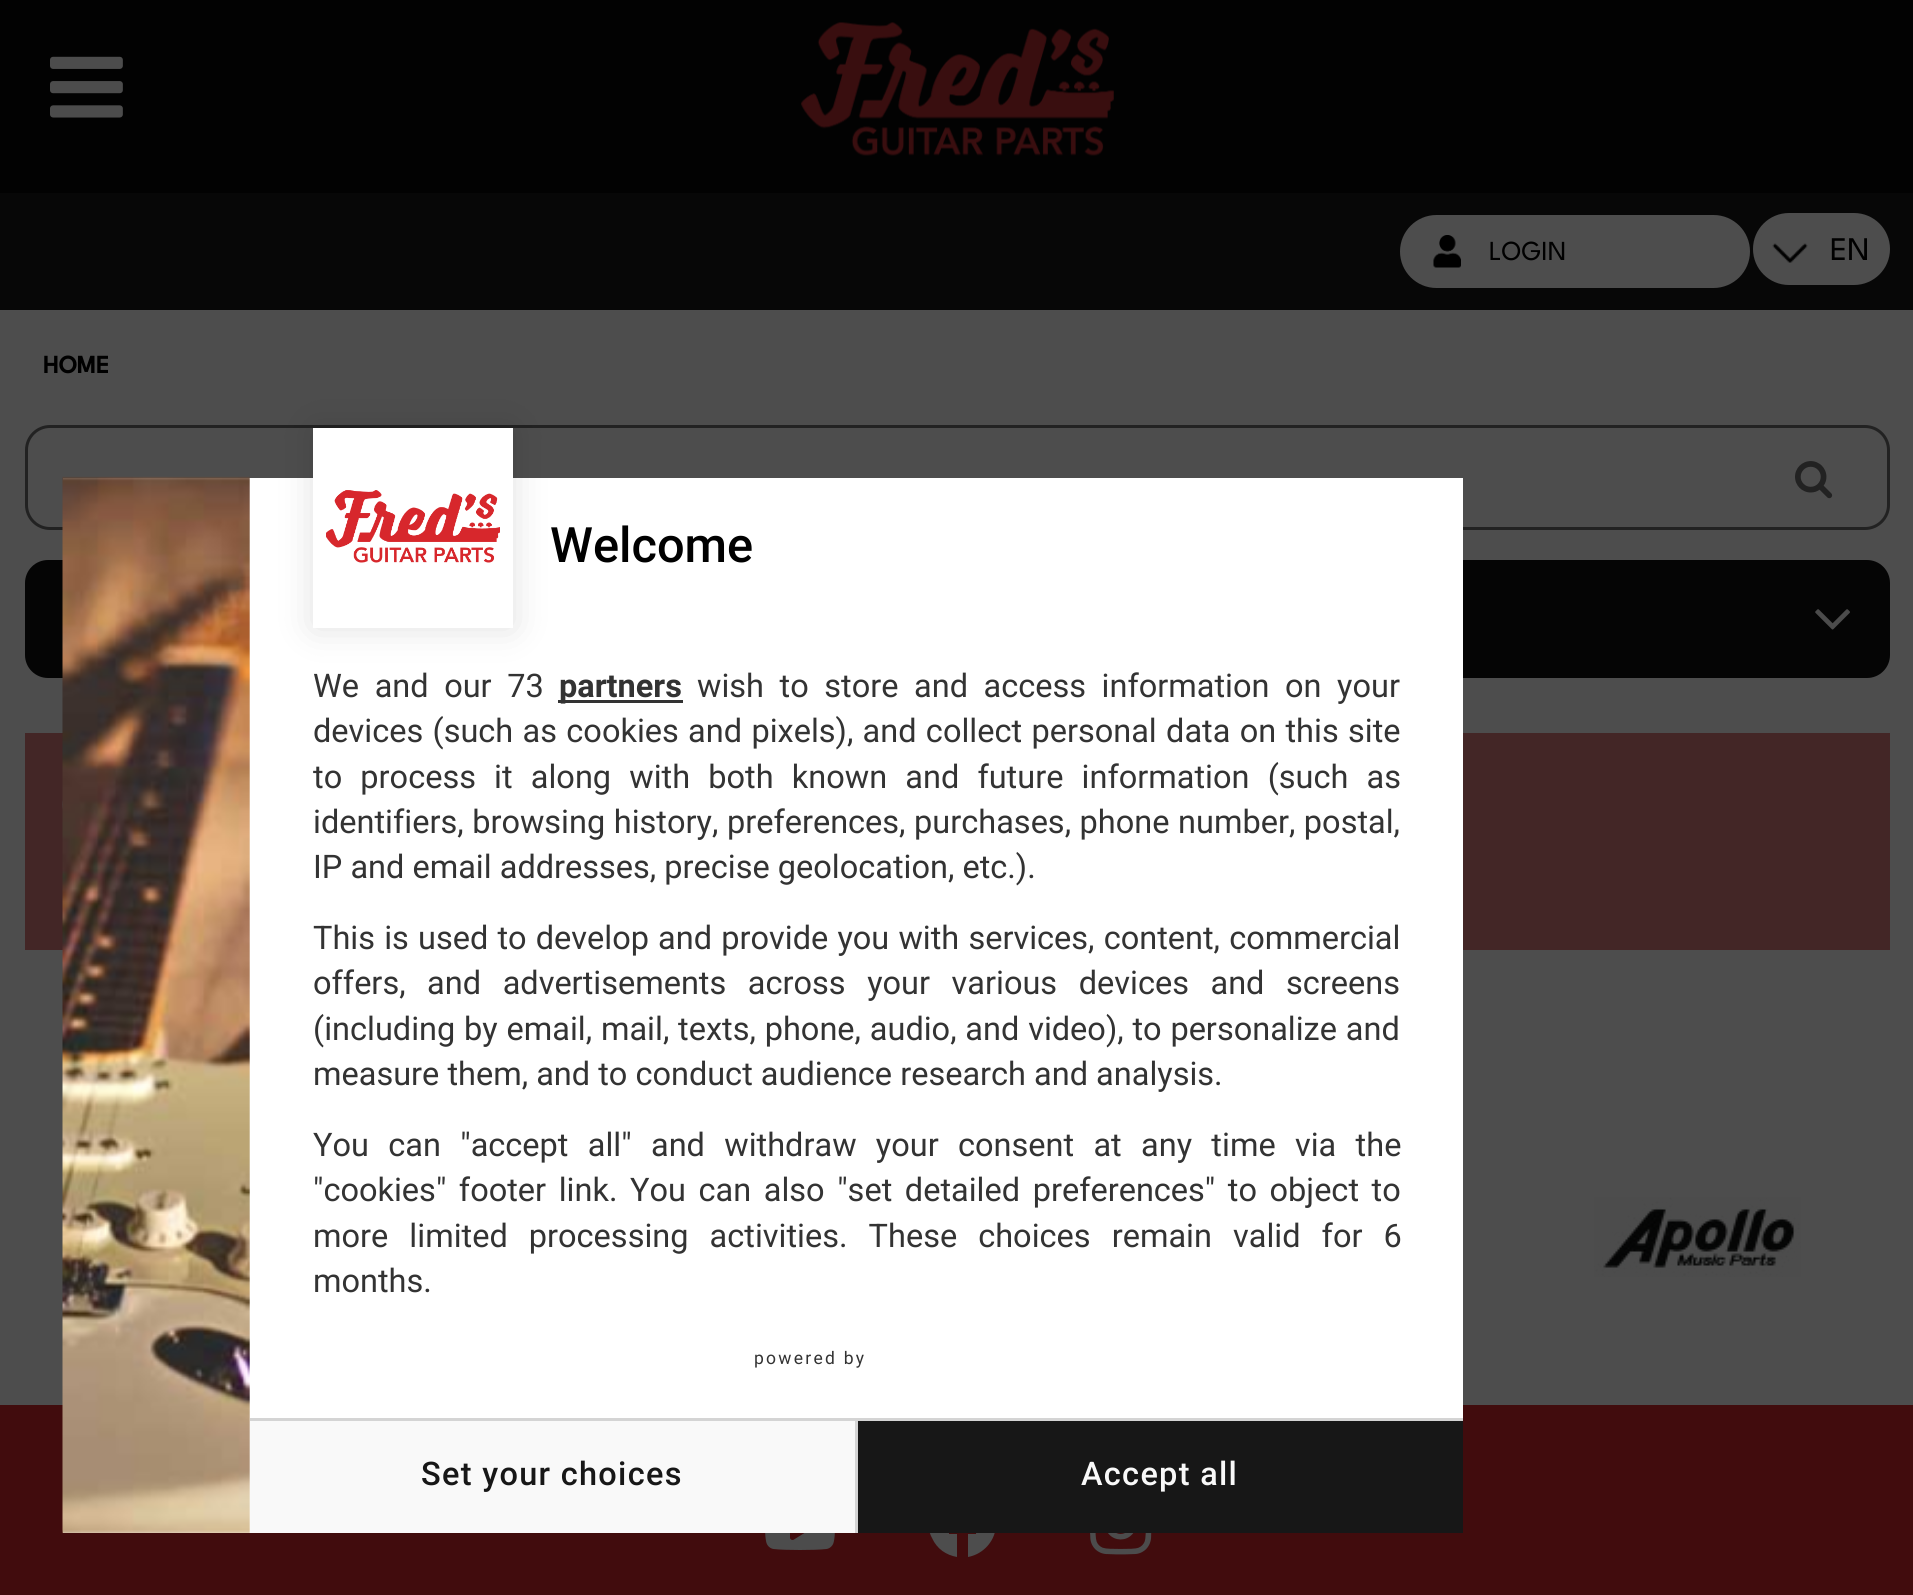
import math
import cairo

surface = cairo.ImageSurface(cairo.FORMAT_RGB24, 1913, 1595)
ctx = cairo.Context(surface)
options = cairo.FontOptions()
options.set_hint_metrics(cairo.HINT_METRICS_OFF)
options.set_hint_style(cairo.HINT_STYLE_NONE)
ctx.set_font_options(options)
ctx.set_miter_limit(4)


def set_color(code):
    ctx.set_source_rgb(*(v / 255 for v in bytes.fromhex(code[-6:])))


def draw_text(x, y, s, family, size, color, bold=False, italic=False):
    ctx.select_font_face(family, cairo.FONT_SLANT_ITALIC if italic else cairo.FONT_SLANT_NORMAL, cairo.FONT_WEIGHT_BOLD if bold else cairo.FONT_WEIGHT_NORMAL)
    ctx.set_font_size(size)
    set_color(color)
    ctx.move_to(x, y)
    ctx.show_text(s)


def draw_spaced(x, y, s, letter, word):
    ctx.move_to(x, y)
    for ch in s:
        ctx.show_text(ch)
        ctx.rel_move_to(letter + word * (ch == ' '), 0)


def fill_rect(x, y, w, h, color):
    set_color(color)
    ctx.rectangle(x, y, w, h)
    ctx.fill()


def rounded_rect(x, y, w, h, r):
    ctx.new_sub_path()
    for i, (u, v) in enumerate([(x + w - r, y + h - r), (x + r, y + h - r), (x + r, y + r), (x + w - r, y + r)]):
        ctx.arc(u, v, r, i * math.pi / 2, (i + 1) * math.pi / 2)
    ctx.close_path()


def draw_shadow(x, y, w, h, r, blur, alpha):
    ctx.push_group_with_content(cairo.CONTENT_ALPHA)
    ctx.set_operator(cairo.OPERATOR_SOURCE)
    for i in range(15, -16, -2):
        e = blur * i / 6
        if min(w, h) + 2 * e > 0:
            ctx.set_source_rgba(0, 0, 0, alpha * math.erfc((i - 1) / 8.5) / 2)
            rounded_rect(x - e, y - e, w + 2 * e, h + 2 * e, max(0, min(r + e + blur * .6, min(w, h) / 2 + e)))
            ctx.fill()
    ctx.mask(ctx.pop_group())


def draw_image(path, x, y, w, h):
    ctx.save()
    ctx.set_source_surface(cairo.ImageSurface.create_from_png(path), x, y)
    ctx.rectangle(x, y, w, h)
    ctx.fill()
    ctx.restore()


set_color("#4d4d4d")
ctx.paint()
fill_rect(0, 0, 1913, 193, "#020202")
draw_image("assets/img1.png", 50, 56, 73, 62)
draw_image("assets/img2.png", 801, 22, 313, 134)
fill_rect(0, 193, 1913, 117, "#070707")
set_color("#4d4d4d")
rounded_rect(1402.5, 217.5, 345, 68, 34)
ctx.fill_preserve()
ctx.set_line_width(5)
ctx.stroke()
draw_image("assets/img3.png", 1433, 235, 28, 33)
draw_text(1489, 260, "LOGIN", "League Spartan", 27.5, "#000000")
set_color("#4d4d4d")
rounded_rect(1755.5, 215.5, 132, 67, 33.5)
ctx.fill_preserve()
ctx.stroke()
draw_image("assets/img4.png", 1772, 243, 36, 20)
draw_text(1830, 260, "EN", "League Spartan", 33, "#000000")
draw_text(43, 373, "HOME", "League Spartan", 25, "#000000", bold=True)
rounded_rect(26.5, 426.5, 1862, 102, 23.5)
set_color("#222222")
ctx.set_line_width(3)
ctx.stroke()
draw_image("assets/img5.png", 1795, 461, 38, 38)
set_color("#050505")
rounded_rect(25, 560, 1865, 118, 23)
ctx.fill()
draw_image("assets/img6.png", 1815, 609, 35, 21)
fill_rect(25, 733, 1865, 217, "#432626")
draw_image("assets/img7.png", 62, 800, 1, 9)
draw_image("assets/img8.png", 1594, 1197, 207, 80)
fill_rect(0, 1405, 1913, 190, "#410c0d")
draw_image("assets/img9.png", 765, 1533, 70, 17)
set_color("#4d4d4d")
ctx.new_path()
ctx.move_to(996, 1524)
ctx.curve_to(996, 1484, 940, 1477, 930, 1515)
ctx.curve_to(928, 1523, 928, 1531, 932, 1538)
ctx.curve_to(937, 1549, 946, 1555, 957, 1557)
ctx.line_to(957, 1534)
ctx.line_to(949, 1534)
ctx.line_to(949, 1524)
ctx.line_to(957, 1524)
ctx.curve_to(957, 1513, 957, 1503, 971, 1503)
ctx.line_to(978, 1504)
ctx.line_to(978, 1512)
ctx.curve_to(967, 1512, 968, 1514, 968, 1524)
ctx.line_to(977, 1524)
ctx.line_to(976, 1534)
ctx.line_to(968, 1534)
ctx.line_to(968, 1557)
ctx.curve_to(984, 1554, 996, 1540, 996, 1524)
ctx.close_path()
ctx.fill()
draw_image("assets/img10.png", 1090, 1533, 62, 22)
fill_rect(63, 478, 1400, 1055, "#ffffff")
draw_image("assets/img11.png", 62, 476, 188, 1057)
set_color("#000000")
draw_shadow(313, 428, 200, 200, 0, 19, 0.12)
fill_rect(326, 441, 174, 174, "#ffffff")
draw_image("assets/img12.png", 326, 490, 174, 73)
ctx.rectangle(319.5, 434.5, 187, 187)
ctx.set_line_width(13)
ctx.stroke()
draw_text(550, 562, "Welcome", "Roboto Medium", 48.75, "#000000")
ctx.select_font_face("Roboto")
ctx.set_font_size(32.5)
set_color("#333333")
draw_spaced(313, 697, "We and our 73", 0, 7.5)
fill_rect(558, 700, 125, 3, "#333333")
draw_text(559, 697, "partners", "Roboto", 32.5, "#333333", bold=True)
ctx.select_font_face("Roboto")
draw_spaced(697, 697, "wish to store and access information on your", 0, 7.5)
draw_spaced(313, 742, "devices (such as cookies and pixels), and collect personal data on this site", 0, 1.25)
draw_spaced(313, 788, "to process it along with both known and future information (such as", 0, 10.1)
draw_spaced(313, 833, "identifiers, browsing history, preferences, purchases, phone number, postal,", 0, 0.5)
draw_text(313, 878, "IP and email addresses, precise geolocation, etc.).", "Roboto", 32.5, "#333333")
draw_spaced(313, 949, "This is used to develop and provide you with services, content, commercial", 0, 1.1)
draw_spaced(313, 994, "offers, and advertisements across your various devices and screens", 0, 13.5)
draw_spaced(313, 1040, "(including by email, mail, texts, phone, audio, and video), to personalize and", 0, 0.75)
draw_text(313, 1085, "measure them, and to conduct audience research and analysis.", "Roboto", 32.5, "#333333")
draw_spaced(313, 1156, "You can \"accept all\" and withdraw your consent at any time via the", 0, 11.25)
draw_spaced(313, 1201, "\"cookies\" footer link. You can also \"set detailed preferences\" to object to", 0, 4.5)
draw_spaced(313, 1247, "more limited processing activities. These choices remain valid for 6", 0, 13)
draw_text(313, 1292, "months.", "Roboto", 32.5, "#333333")
ctx.set_font_size(17.5)
draw_spaced(754, 1364, "powered by", 2.25, 0)
fill_rect(250, 1421, 605, 112, "#f9f9f9")
fill_rect(250, 1418, 1213, 3, "#d4d4d4")
fill_rect(855, 1418, 3, 115, "#d4d4d4")
ctx.select_font_face("Roboto Medium")
ctx.set_font_size(32.5)
set_color("#171717")
draw_spaced(421, 1485, "Set your choices", 1.3, 0)
fill_rect(858, 1421, 605, 112, "#171717")
set_color("#f9f9f9")
draw_spaced(1081, 1485, "Accept all", 1.3, 0)
surface.write_to_png("output.png")
